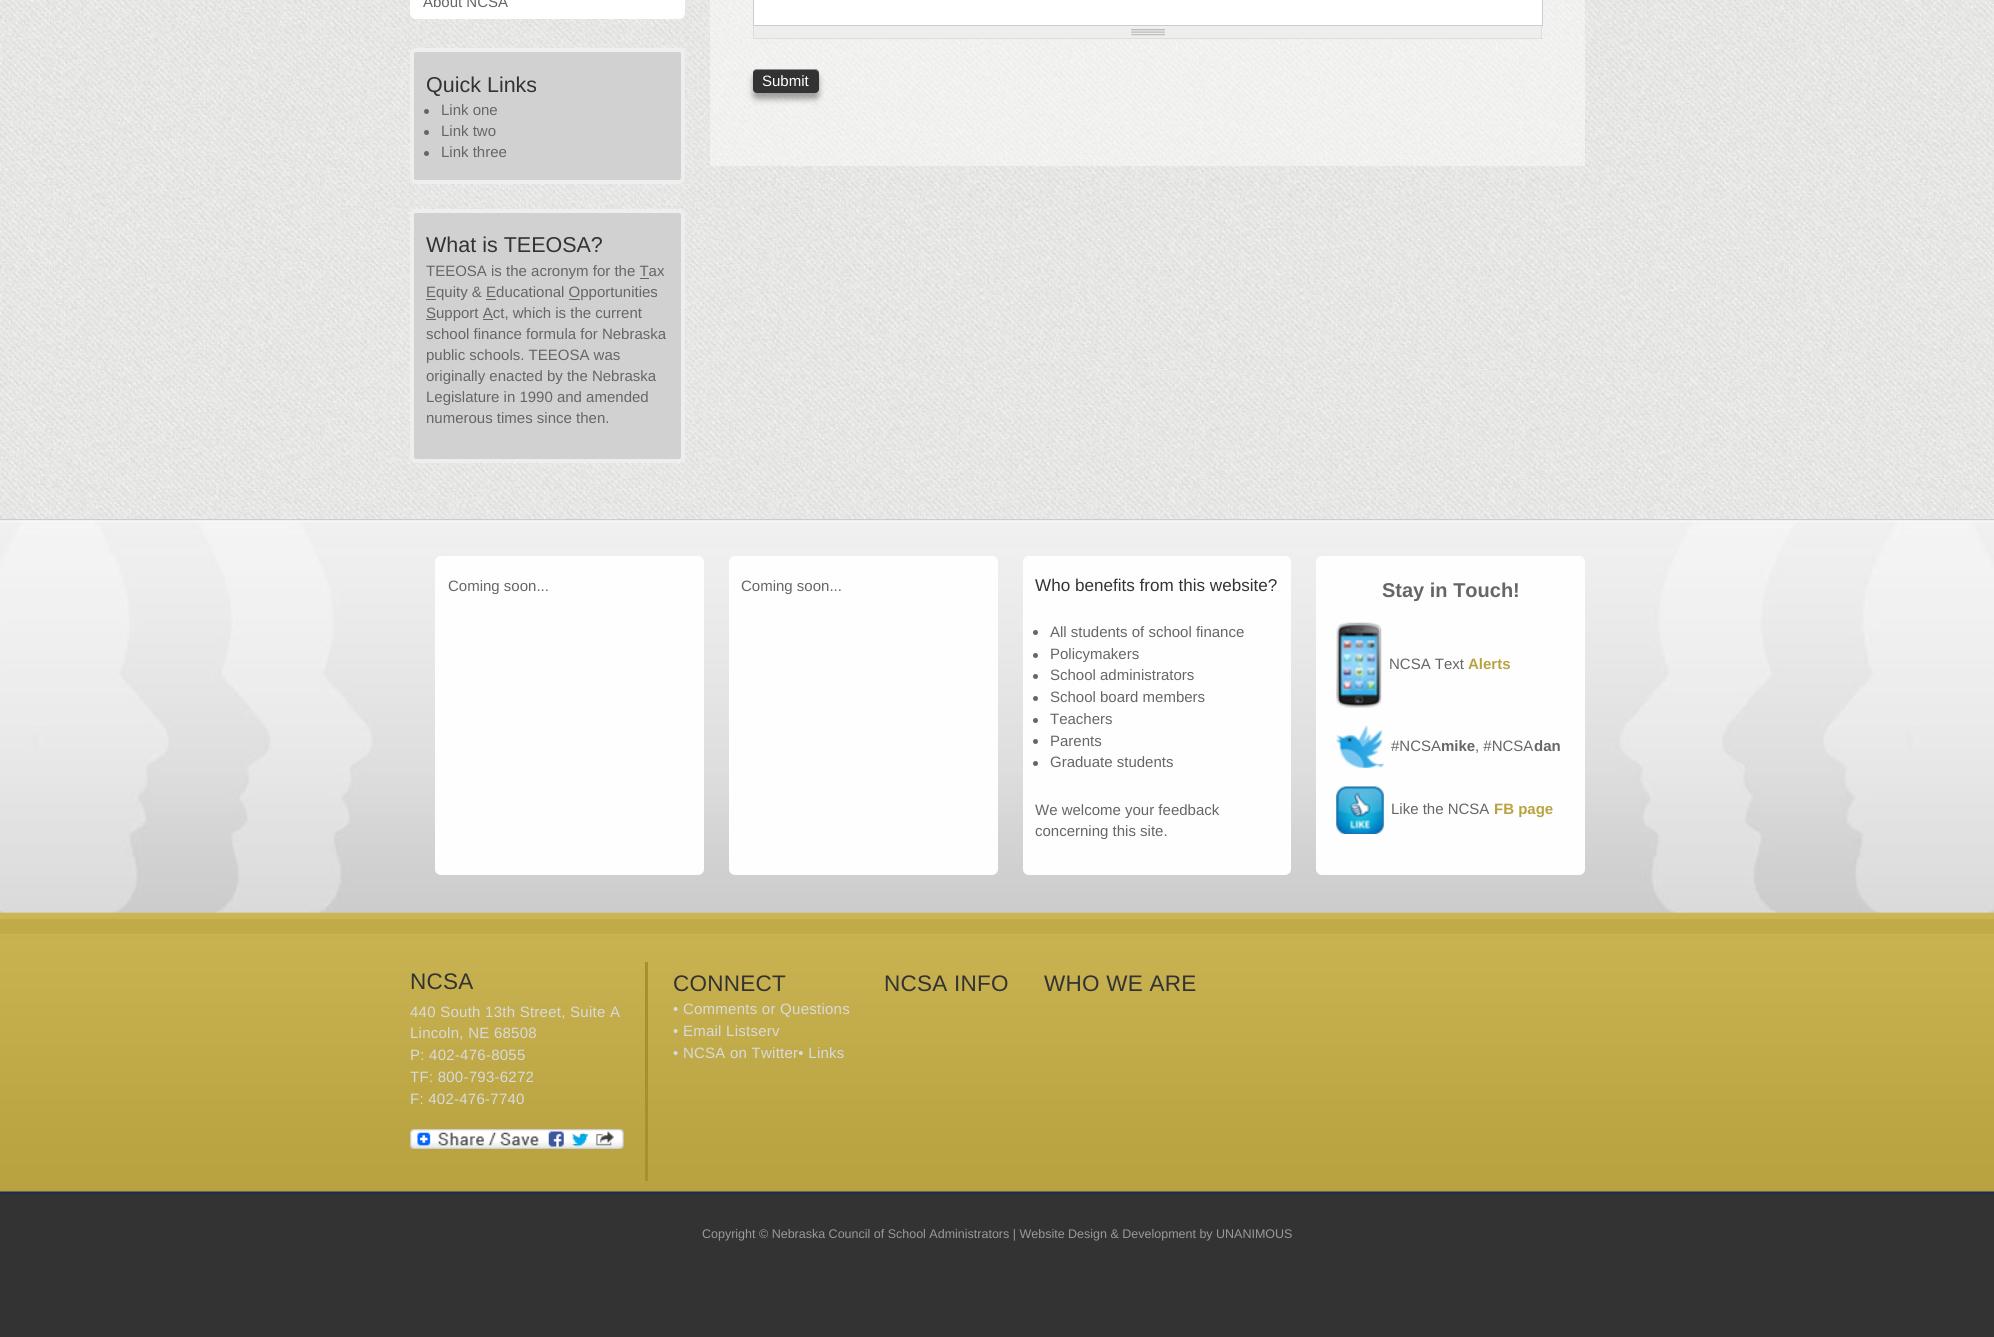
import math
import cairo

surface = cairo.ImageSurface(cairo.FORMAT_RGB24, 1994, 1337)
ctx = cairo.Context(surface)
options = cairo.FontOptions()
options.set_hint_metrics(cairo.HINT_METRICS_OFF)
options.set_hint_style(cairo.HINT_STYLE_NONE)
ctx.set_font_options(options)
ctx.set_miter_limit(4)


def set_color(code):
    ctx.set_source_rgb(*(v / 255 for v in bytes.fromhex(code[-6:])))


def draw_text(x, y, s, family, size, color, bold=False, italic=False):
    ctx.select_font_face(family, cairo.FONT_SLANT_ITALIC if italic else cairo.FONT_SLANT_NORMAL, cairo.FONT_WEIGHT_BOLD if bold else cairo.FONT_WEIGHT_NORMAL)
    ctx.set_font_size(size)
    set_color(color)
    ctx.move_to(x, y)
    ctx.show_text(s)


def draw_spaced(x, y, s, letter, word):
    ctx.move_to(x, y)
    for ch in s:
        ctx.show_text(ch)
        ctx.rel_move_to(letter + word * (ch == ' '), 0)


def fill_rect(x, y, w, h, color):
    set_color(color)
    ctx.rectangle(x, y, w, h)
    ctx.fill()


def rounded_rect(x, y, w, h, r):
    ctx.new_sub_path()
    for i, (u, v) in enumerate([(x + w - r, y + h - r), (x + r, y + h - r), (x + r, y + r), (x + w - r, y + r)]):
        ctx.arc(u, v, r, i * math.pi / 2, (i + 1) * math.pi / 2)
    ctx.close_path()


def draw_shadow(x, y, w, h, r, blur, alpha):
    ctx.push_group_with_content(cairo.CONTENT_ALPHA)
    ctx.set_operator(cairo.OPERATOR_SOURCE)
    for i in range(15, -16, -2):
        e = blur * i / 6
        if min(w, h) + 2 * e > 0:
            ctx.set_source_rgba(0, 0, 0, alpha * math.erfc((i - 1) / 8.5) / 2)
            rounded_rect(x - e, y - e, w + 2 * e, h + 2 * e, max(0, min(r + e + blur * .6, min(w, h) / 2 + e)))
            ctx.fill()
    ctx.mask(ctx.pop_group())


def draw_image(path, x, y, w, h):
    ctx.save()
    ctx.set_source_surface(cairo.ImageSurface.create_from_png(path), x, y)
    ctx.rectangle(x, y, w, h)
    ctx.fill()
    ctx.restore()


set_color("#ffffff")
ctx.paint()
draw_image("assets/img1.png", 0, 0, 1994, 519)
set_color("#ffffff")
rounded_rect(410, -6, 275, 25, 6)
ctx.fill()
draw_text(423, 7, "About NCSA", "Liberation Sans", 15, "#666666")
set_color("#d1d1d1")
rounded_rect(412, 50, 271, 132, 4)
ctx.fill_preserve()
set_color("#eeeeee")
ctx.set_line_width(4)
ctx.stroke()
draw_text(426, 92, "Quick Links", "Liberation Sans", 21.5, "#333333")
set_color("#666666")
ctx.new_path()
ctx.arc(426.5, 111.5, 2.5, 0, 2 * math.pi)
ctx.fill()
draw_text(441, 115, "Link one", "Liberation Sans", 15, "#666666")
ctx.new_path()
ctx.arc(426.5, 132.5, 2.5, 0, 2 * math.pi)
ctx.fill()
draw_text(441, 136, "Link two", "Liberation Sans", 15, "#666666")
ctx.new_path()
ctx.arc(426.5, 153.5, 2.5, 0, 2 * math.pi)
ctx.fill()
draw_text(441, 157, "Link three", "Liberation Sans", 15, "#666666")
set_color("#d1d1d1")
rounded_rect(412, 211, 271, 250, 4)
ctx.fill_preserve()
set_color("#eeeeee")
ctx.stroke()
draw_text(426, 252, "What is TEEOSA?", "Liberation Sans", 21.5, "#333333")
draw_text(426, 276, "TEEOSA is the acronym for the Tax", "Liberation Sans", 15, "#666666")
fill_rect(640, 278, 9, 1, "#666666")
fill_rect(426, 299, 10, 1, "#666666")
draw_text(426, 297, "Equity & Educational Opportunities", "Liberation Sans", 15, "#666666")
fill_rect(486, 299, 10, 1, "#666666")
fill_rect(569, 299, 11, 1, "#666666")
fill_rect(426, 319, 10, 1, "#666666")
draw_text(426, 318, "Support Act, which is the current", "Liberation Sans", 15, "#666666")
fill_rect(483, 319, 10, 1, "#666666")
draw_text(426, 339, "school finance formula for Nebraska", "Liberation Sans", 15, "#666666")
draw_text(426, 360, "public schools. TEEOSA was", "Liberation Sans", 15, "#666666")
draw_text(426, 381, "originally enacted by the Nebraska", "Liberation Sans", 15, "#666666")
draw_text(426, 402, "Legislature in 1990 and amended", "Liberation Sans", 15, "#666666")
draw_text(426, 423, "numerous times since then.", "Liberation Sans", 15, "#666666")
ctx.set_source_rgba(0.992, 0.992, 0.992, 0.5)
ctx.rectangle(710, 0, 875, 166)
ctx.fill()
set_color("#ffffff")
ctx.rectangle(753.5, -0.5, 789, 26)
ctx.fill_preserve()
set_color("#cccccc")
ctx.set_line_width(1)
ctx.stroke()
fill_rect(754, 26, 787, 12, "#eeeeee")
draw_image("assets/img2.png", 1131, 29, 34, 7)
fill_rect(1541, 26, 1, 13, "#dddddd")
fill_rect(753, 38, 790, 1, "#dddddd")
fill_rect(753, 26, 1, 13, "#dddddd")
set_color("#000000")
draw_shadow(753, 75, 66, 24, 4, 3, 0.35)
set_color("#333333")
rounded_rect(753, 69, 66, 24, 4)
ctx.fill()
ctx.set_source_rgba(1, 1, 1, 0.44)
ctx.new_path()
ctx.move_to(756, 70)
ctx.line_to(815, 70)
ctx.curve_to(817, 70, 819, 72, 819, 74)
ctx.line_to(819, 73)
ctx.curve_to(819, 71, 817, 69, 815, 69)
ctx.line_to(757, 69)
ctx.curve_to(756, 69, 754, 70, 754, 71)
ctx.close_path()
ctx.fill()
draw_text(762, 86, "Submit", "Liberation Sans", 15, "#ffffff")
fill_rect(0, 519, 1994, 394, "#cccccc")
draw_image("assets/img3.png", 0, 520, 1994, 393)
set_color("#fefefe")
rounded_rect(435, 556, 269, 319, 6)
ctx.fill()
draw_text(448, 591, "Coming soon...", "Liberation Sans", 15, "#666666")
set_color("#fefefe")
rounded_rect(729, 556, 269, 319, 6)
ctx.fill()
draw_text(741, 591, "Coming soon...", "Liberation Sans", 15, "#666666")
set_color("#fefefe")
rounded_rect(1023, 556, 268, 319, 6)
ctx.fill()
draw_text(1035, 591, "Who benefits from this website?", "Liberation Sans", 17.1, "#333333")
set_color("#666666")
ctx.new_path()
ctx.arc(1035.5, 632.5, 2.5, 0, 2 * math.pi)
ctx.fill()
draw_text(1050, 637, "All students of school finance", "Liberation Sans", 15, "#666666")
ctx.new_path()
ctx.arc(1035.5, 655.5, 2.5, 0, 2 * math.pi)
ctx.fill()
draw_text(1050, 659, "Policymakers", "Liberation Sans", 15, "#666666")
ctx.new_path()
ctx.arc(1035.5, 676.5, 2.5, 0, 2 * math.pi)
ctx.fill()
draw_text(1050, 680, "School administrators", "Liberation Sans", 15, "#666666")
ctx.new_path()
ctx.arc(1035.5, 698.5, 2.5, 0, 2 * math.pi)
ctx.fill()
draw_text(1050, 702, "School board members", "Liberation Sans", 15, "#666666")
ctx.new_path()
ctx.arc(1035.5, 720.5, 2.5, 0, 2 * math.pi)
ctx.fill()
draw_text(1050, 724, "Teachers", "Liberation Sans", 15, "#666666")
ctx.new_path()
ctx.arc(1035.5, 741.5, 2.5, 0, 2 * math.pi)
ctx.fill()
draw_text(1050, 746, "Parents", "Liberation Sans", 15, "#666666")
ctx.new_path()
ctx.arc(1035.5, 763.5, 2.5, 0, 2 * math.pi)
ctx.fill()
draw_text(1050, 767, "Graduate students", "Liberation Sans", 15, "#666666")
draw_text(1035, 815, "We welcome your feedback", "Liberation Sans", 15, "#666666")
draw_text(1035, 836, "concerning this site.", "Liberation Sans", 15, "#666666")
set_color("#fefefe")
rounded_rect(1316, 556, 269, 319, 6)
ctx.fill()
draw_text(1382, 597, "Stay in Touch!", "Liberation Sans", 20, "#666666", bold=True)
draw_image("assets/img4.png", 1336, 622, 46, 86)
draw_text(1389, 669, "NCSA Text", "Liberation Sans", 15, "#666666")
draw_text(1468, 669, "Alerts", "Liberation Sans", 15, "#b9a341", bold=True)
draw_image("assets/img5.png", 1336, 725, 48, 43)
draw_text(1391, 751, "#NCSA", "Liberation Sans", 15, "#666666")
draw_text(1441, 751, "mike", "Liberation Sans", 15, "#666666", bold=True)
draw_text(1475, 751, ", #NCSA", "Liberation Sans", 15, "#666666")
draw_text(1534, 751, "dan", "Liberation Sans", 15, "#666666", bold=True)
draw_image("assets/img6.png", 1336, 786, 48, 48)
draw_text(1391, 814, "Like the NCSA", "Liberation Sans", 15, "#666666")
draw_text(1494, 814, "FB page", "Liberation Sans", 15, "#b9a341", bold=True)
fill_rect(0, 1191, 1994, 3, "#212a4f")
draw_image("assets/img7.png", 0, 912, 1994, 280)
fill_rect(645, 962, 3, 219, "#a58f2e")
ctx.select_font_face("Liberation Sans")
ctx.set_font_size(22.5)
set_color("#333333")
draw_spaced(410, 989, "NCSA", 0.25, 0)
ctx.set_font_size(15)
set_color("#d9dadc")
draw_spaced(410, 1017, "440 South 13th Street, Suite A", 0.25, 0)
draw_spaced(410, 1038, "Lincoln, NE 68508", 0.25, 0)
draw_spaced(410, 1060, "P: 402-476-8055", 0.25, 0)
draw_spaced(410, 1082, "TF: 800-793-6272", 0.25, 0)
draw_spaced(410, 1104, "F: 402-476-7740", 0.25, 0)
draw_image("assets/img8.png", 410, 1129, 214, 20)
ctx.set_font_size(22.5)
set_color("#333333")
draw_spaced(673, 991, "CONNECT", 0.25, 0)
ctx.set_font_size(15)
set_color("#d9dadc")
draw_spaced(673, 1014, "• Comments or Questions", 0.25, 0)
draw_spaced(673, 1036, "• Email Listserv", 0.25, 0)
draw_spaced(673, 1058, "• NCSA on Twitter• Links", 0.25, 0)
ctx.set_font_size(22.5)
set_color("#333333")
draw_spaced(884, 991, "NCSA INFO", 0.25, 0)
draw_spaced(1044, 991, "WHO WE ARE", 0.25, 0)
fill_rect(0, 1194, 1994, 143, "#333333")
draw_text(702, 1238, "Copyright © Nebraska Council of School Administrators | Website Design & Development by UNANIMOUS", "Liberation Sans", 12.5, "#999999")
surface.write_to_png("output.png")
